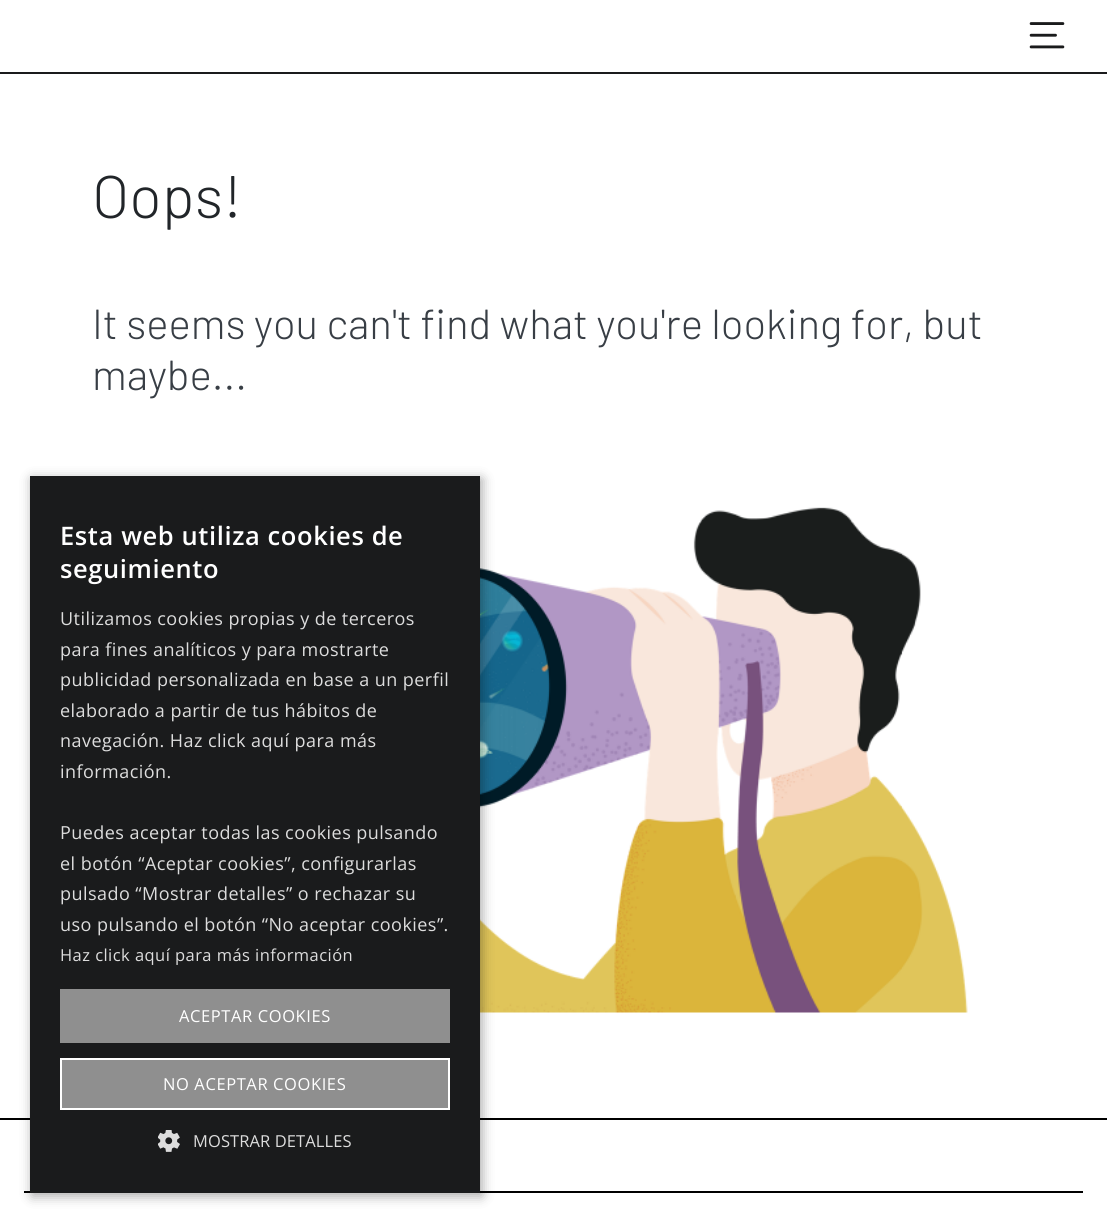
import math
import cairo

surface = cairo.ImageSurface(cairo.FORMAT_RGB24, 1107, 1222)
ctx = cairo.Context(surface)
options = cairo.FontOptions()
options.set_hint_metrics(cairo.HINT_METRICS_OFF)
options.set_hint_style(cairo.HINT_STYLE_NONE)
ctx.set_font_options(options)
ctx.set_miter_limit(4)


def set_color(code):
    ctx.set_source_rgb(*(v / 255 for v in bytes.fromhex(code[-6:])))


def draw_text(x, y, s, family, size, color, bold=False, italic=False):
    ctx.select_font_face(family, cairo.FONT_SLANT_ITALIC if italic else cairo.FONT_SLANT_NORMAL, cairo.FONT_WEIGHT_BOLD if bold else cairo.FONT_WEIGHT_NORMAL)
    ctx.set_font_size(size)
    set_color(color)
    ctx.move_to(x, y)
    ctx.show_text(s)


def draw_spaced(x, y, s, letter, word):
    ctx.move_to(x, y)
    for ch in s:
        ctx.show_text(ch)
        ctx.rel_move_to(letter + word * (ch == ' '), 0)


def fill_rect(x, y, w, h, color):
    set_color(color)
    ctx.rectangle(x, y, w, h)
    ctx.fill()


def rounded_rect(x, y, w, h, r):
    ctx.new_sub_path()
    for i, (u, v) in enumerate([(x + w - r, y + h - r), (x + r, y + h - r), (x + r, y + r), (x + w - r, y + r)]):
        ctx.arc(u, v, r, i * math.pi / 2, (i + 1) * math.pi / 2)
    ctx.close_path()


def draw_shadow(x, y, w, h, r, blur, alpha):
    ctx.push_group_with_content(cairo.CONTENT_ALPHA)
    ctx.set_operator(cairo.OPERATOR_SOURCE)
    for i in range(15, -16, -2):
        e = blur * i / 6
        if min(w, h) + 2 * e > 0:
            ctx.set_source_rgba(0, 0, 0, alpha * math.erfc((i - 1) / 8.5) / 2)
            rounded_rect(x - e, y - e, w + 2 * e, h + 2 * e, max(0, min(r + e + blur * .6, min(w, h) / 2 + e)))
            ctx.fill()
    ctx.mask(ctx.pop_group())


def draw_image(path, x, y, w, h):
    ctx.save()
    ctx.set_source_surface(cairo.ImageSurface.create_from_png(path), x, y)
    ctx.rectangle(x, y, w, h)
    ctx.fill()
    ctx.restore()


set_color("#ffffff")
ctx.paint()
fill_rect(0, 72, 1107, 2, "#1a1b1c")
draw_image("assets/img1.png", 1029, 22, 36, 27)
draw_text(92, 218, "Oops!", "Barlow Light", 60, "#212529")
draw_text(92, 339, "It seems you can't find what you're looking for, but", "Barlow Light", 42, "#383e45")
draw_text(92, 390, "maybe...", "Barlow Light", 42, "#383e45")
draw_image("assets/img2.png", 480, 507, 488, 506)
fill_rect(0, 1118, 1107, 2, "#000000")
fill_rect(24, 1191, 1059, 2, "#000000")
set_color("#000000")
draw_shadow(32, 479, 450, 717, 0, 6, 0.35)
fill_rect(30, 476, 450, 717, "#1a1b1c")
ctx.select_font_face("Open Sans SemiBold")
ctx.set_font_size(25.5)
set_color("#ffffff")
draw_spaced(60, 545, "Esta web utiliza cookies de", 0.6, 0)
draw_spaced(60, 578, "seguimiento", 0.6, 0)
ctx.select_font_face("Open Sans")
ctx.set_font_size(18)
set_color("#dddddd")
draw_spaced(60, 625, "Utilizamos cookies propias y de terceros", 0.45, 0)
draw_spaced(60, 656, "para fines analíticos y para mostrarte", 0.45, 0)
draw_spaced(60, 686, "publicidad personalizada en base a un perfil", 0.45, 0)
draw_spaced(60, 717, "elaborado a partir de tus hábitos de", 0.45, 0)
draw_spaced(60, 747, "navegación. Haz click aquí para más", 0.45, 0)
draw_spaced(60, 778, "información.", 0.45, 0)
draw_spaced(60, 839, "Puedes aceptar todas las cookies pulsando", 0.45, 0)
draw_spaced(60, 870, "el botón “Aceptar cookies”, configurarlas", 0.45, 0)
draw_spaced(60, 900, "pulsado “Mostrar detalles” o rechazar su", 0.45, 0)
draw_spaced(60, 931, "uso pulsando el botón “No aceptar cookies”.", 0.45, 0)
ctx.set_font_size(16.5)
draw_spaced(60, 961, "Haz click aquí para más información", 0.45, 0)
fill_rect(60, 989, 390, 54, "#8f8f8f")
set_color("#ffffff")
draw_spaced(179, 1022, "ACEPTAR COOKIES", 0.6, 0)
set_color("#8f8f8f")
ctx.rectangle(61, 1059, 388, 50)
ctx.fill_preserve()
set_color("#ffffff")
ctx.stroke()
draw_spaced(163, 1090, "NO ACEPTAR COOKIES", 0.6, 0)
draw_image("assets/img3.png", 158, 1130, 22, 22)
set_color("#dddddd")
draw_spaced(193, 1147, "MOSTRAR DETALLES", 0.1, 0)
surface.write_to_png("output.png")
